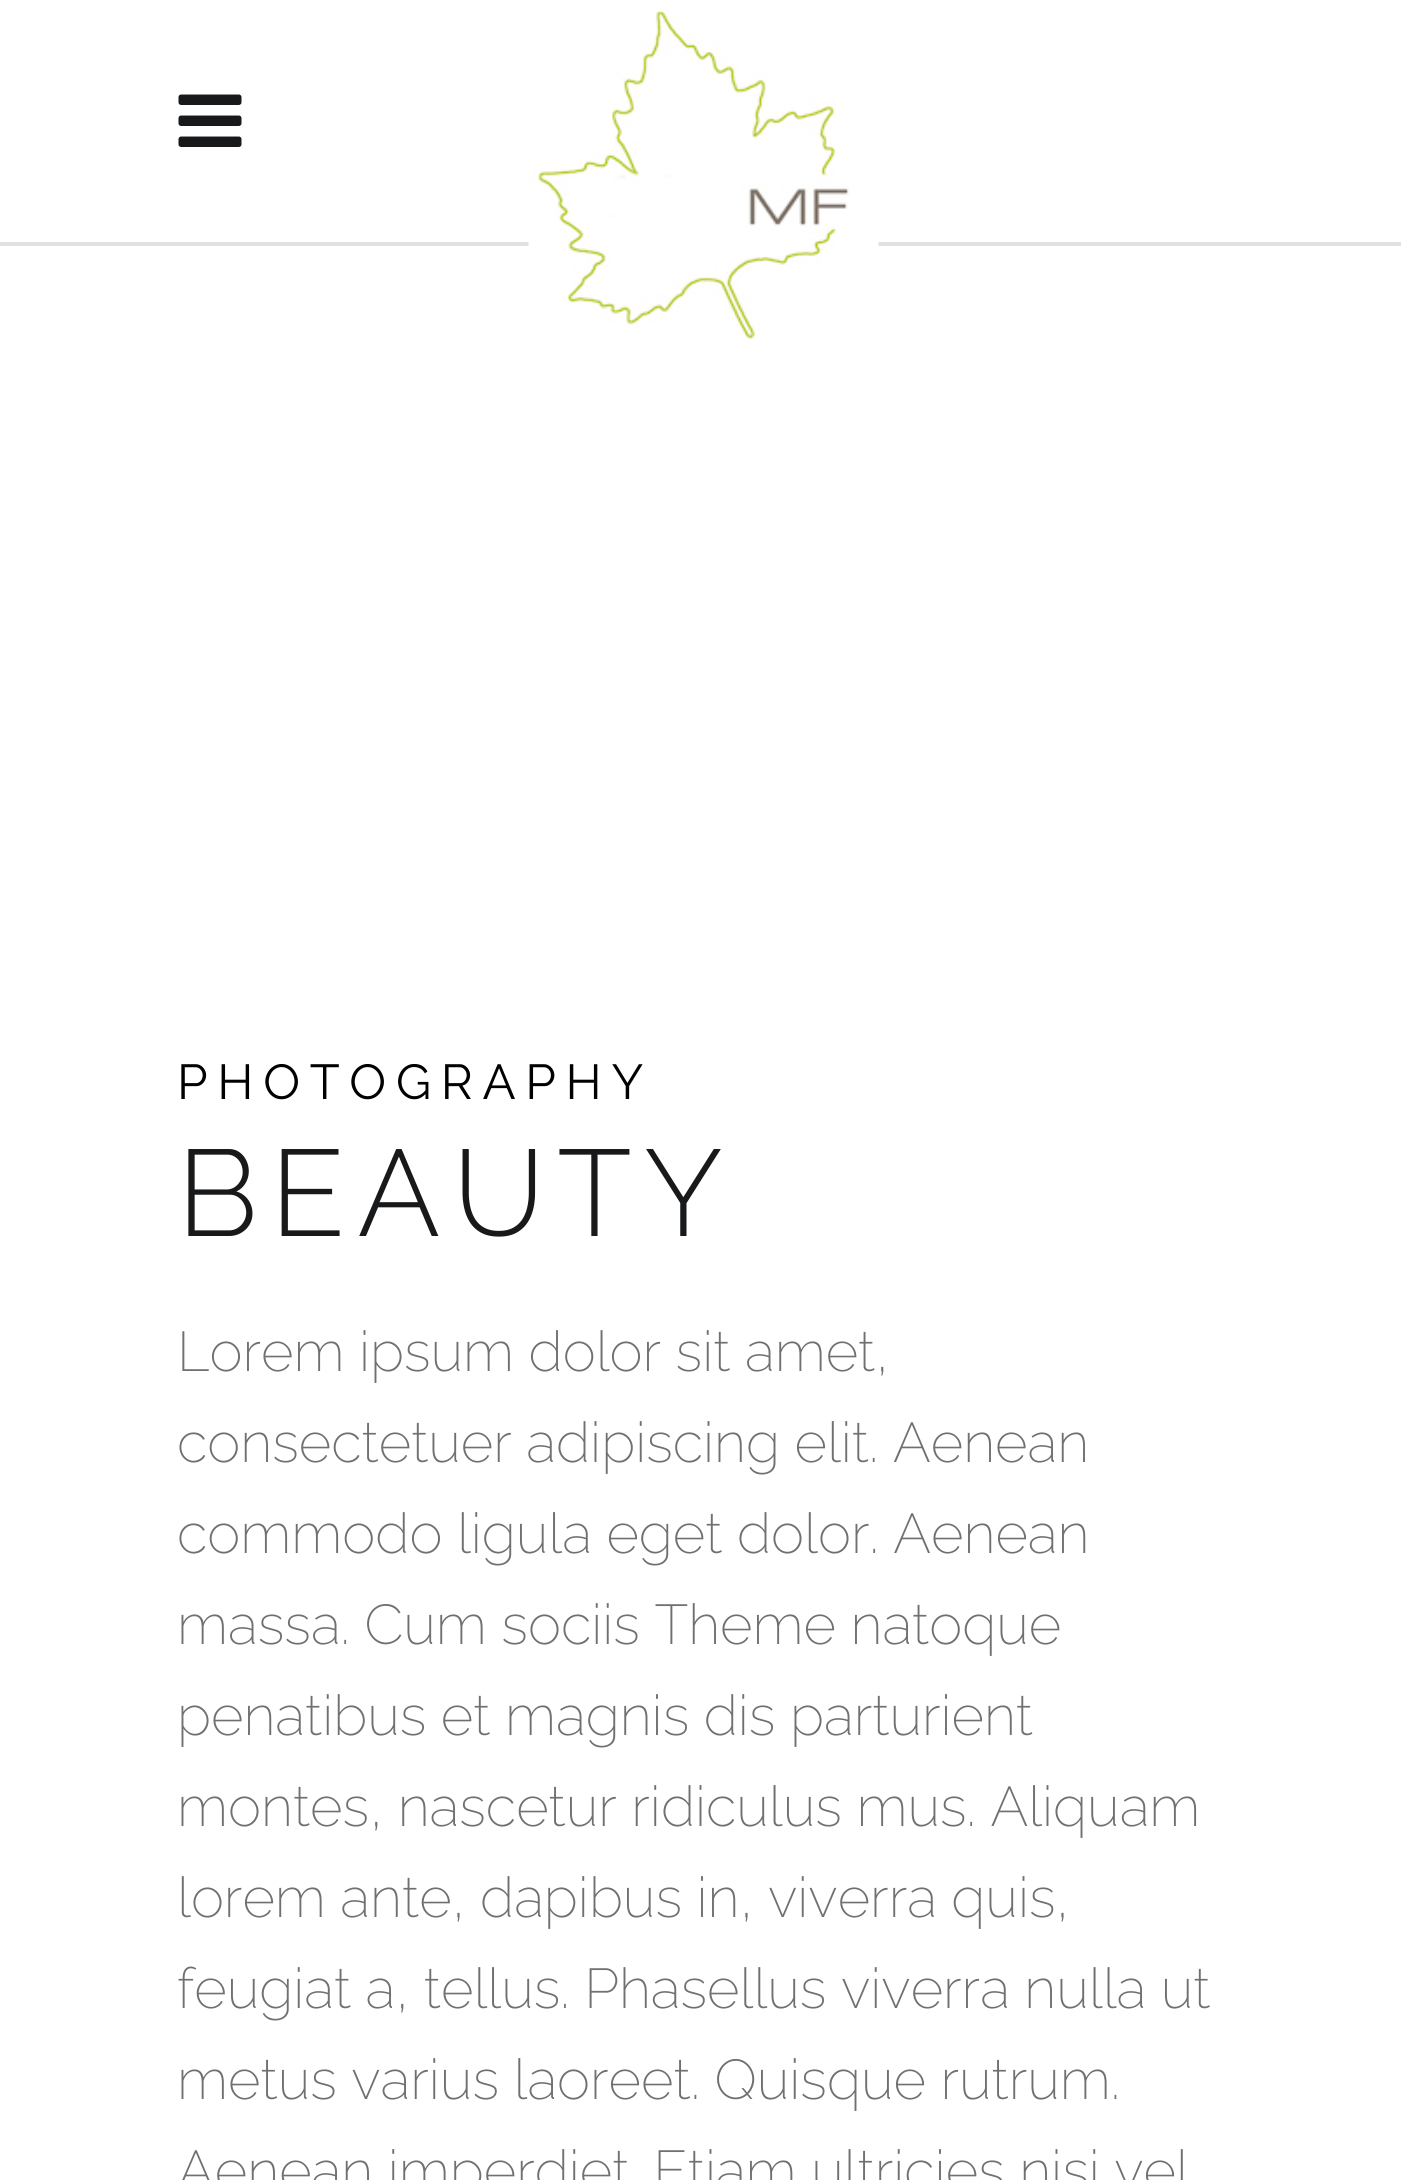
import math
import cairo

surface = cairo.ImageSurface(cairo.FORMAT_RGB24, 1401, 2180)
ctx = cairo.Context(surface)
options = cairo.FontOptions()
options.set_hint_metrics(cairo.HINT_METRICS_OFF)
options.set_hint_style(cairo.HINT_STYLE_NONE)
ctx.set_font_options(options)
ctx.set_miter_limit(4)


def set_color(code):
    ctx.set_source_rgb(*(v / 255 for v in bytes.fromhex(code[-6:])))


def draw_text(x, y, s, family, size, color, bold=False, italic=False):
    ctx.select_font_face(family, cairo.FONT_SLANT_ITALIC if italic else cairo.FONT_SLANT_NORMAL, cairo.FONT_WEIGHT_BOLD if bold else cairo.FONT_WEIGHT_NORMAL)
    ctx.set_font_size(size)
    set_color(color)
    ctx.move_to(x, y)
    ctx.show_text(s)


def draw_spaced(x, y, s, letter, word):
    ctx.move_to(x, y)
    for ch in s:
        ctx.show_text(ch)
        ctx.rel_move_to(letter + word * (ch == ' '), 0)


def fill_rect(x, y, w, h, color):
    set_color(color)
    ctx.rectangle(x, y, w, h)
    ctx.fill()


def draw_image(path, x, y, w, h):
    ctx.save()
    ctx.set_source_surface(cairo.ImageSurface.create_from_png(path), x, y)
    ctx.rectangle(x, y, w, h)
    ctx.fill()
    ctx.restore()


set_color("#ffffff")
ctx.paint()
fill_rect(0, 242, 1401, 4, "#e1e1e1")
draw_image("assets/img1.png", 178, 94, 64, 53)
draw_image("assets/img2.png", 528, 10, 351, 330)
ctx.select_font_face("Raleway")
ctx.set_font_size(49)
set_color("#000000")
draw_spaced(177, 1099, "PHOTOGRAPHY", 9.75, 0)
ctx.select_font_face("Raleway Light")
ctx.set_font_size(122.5)
set_color("#18191b")
draw_spaced(177, 1236, "BEAUTY", 12.25, 0)
draw_text(177, 1371, "Lorem ipsum dolor sit amet,", "Raleway ExtraLight", 56, "#707070")
draw_text(177, 1462, "consectetuer adipiscing elit. Aenean", "Raleway ExtraLight", 56, "#707070")
draw_text(177, 1553, "commodo ligula eget dolor. Aenean", "Raleway ExtraLight", 56, "#707070")
draw_text(177, 1644, "massa. Cum sociis Theme natoque", "Raleway ExtraLight", 56, "#707070")
draw_text(177, 1735, "penatibus et magnis dis parturient", "Raleway ExtraLight", 56, "#707070")
draw_text(177, 1826, "montes, nascetur ridiculus mus. Aliquam", "Raleway ExtraLight", 56, "#707070")
draw_text(177, 1917, "lorem ante, dapibus in, viverra quis,", "Raleway ExtraLight", 56, "#707070")
draw_text(177, 2008, "feugiat a, tellus. Phasellus viverra nulla ut", "Raleway ExtraLight", 56, "#707070")
draw_text(177, 2099, "metus varius laoreet. Quisque rutrum.", "Raleway ExtraLight", 56, "#707070")
draw_text(177, 2190, "Aenean imperdiet. Etiam ultricies nisi vel", "Raleway ExtraLight", 56, "#707070")
surface.write_to_png("output.png")
